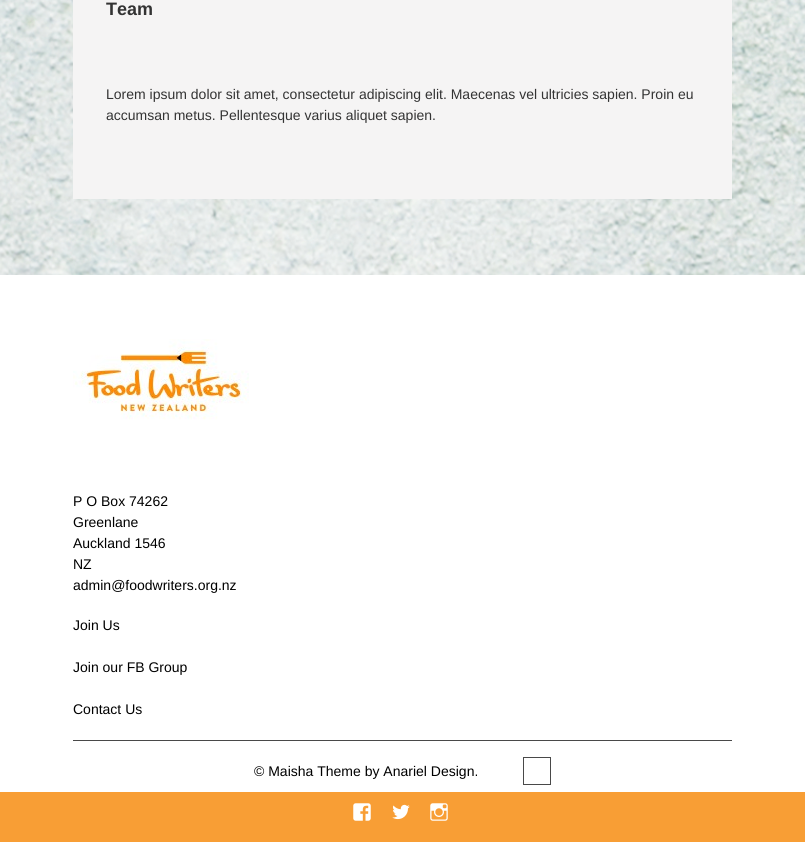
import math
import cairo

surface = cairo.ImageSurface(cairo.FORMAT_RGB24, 805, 842)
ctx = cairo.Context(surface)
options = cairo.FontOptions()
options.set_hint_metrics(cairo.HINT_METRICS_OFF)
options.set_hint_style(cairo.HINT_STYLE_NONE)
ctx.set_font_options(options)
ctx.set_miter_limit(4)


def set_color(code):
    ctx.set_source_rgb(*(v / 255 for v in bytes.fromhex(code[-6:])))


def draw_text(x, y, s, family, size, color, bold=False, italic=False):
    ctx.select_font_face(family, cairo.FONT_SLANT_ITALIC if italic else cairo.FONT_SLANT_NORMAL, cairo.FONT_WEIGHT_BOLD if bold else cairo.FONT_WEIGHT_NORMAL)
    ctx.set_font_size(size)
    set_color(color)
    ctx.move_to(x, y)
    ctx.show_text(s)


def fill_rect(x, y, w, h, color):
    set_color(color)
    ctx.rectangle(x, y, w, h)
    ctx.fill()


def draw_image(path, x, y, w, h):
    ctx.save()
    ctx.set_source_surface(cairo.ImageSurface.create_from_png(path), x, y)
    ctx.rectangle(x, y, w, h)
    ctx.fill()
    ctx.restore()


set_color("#ffffff")
ctx.paint()
draw_image("assets/img1.png", 0, 0, 805, 275)
fill_rect(73, 0, 659, 199, "#f5f4f4")
draw_text(106, 15, "Team", "Liberation Sans", 18, "#333333", bold=True)
draw_text(106, 99, "Lorem ipsum dolor sit amet, consectetur adipiscing elit. Maecenas vel ultricies sapien. Proin eu", "Liberation Sans", 14, "#333333")
draw_text(106, 120, "accumsan metus. Pellentesque varius aliquet sapien.", "Liberation Sans", 14, "#333333")
draw_image("assets/img2.png", 73, 339, 176, 81)
draw_text(73, 506, "P O Box 74262", "Liberation Sans", 14, "#000000")
draw_text(73, 527, "Greenlane", "Liberation Sans", 14, "#000000")
draw_text(73, 548, "Auckland 1546", "Liberation Sans", 14, "#000000")
draw_text(73, 569, "NZ", "Liberation Sans", 14, "#000000")
draw_text(73, 590, "admin@foodwriters.org.nz", "Liberation Sans", 14, "#000000")
draw_text(73, 630, "Join Us", "Liberation Sans", 14, "#000000")
draw_text(73, 672, "Join our FB Group", "Liberation Sans", 14, "#000000")
draw_text(73, 714, "Contact Us", "Liberation Sans", 14, "#000000")
fill_rect(73, 740, 659, 1, "#494949")
draw_text(254, 776, "© Maisha Theme by Anariel Design.", "Liberation Sans", 14, "#000000")
ctx.rectangle(523.5, 757.5, 27, 27)
set_color("#494949")
ctx.set_line_width(1)
ctx.stroke()
fill_rect(0, 792, 805, 50, "#f89e35")
draw_image("assets/img3.png", 353, 803, 18, 18)
draw_image("assets/img4.png", 392, 804, 18, 16)
draw_image("assets/img5.png", 430, 803, 18, 18)
surface.write_to_png("output.png")
